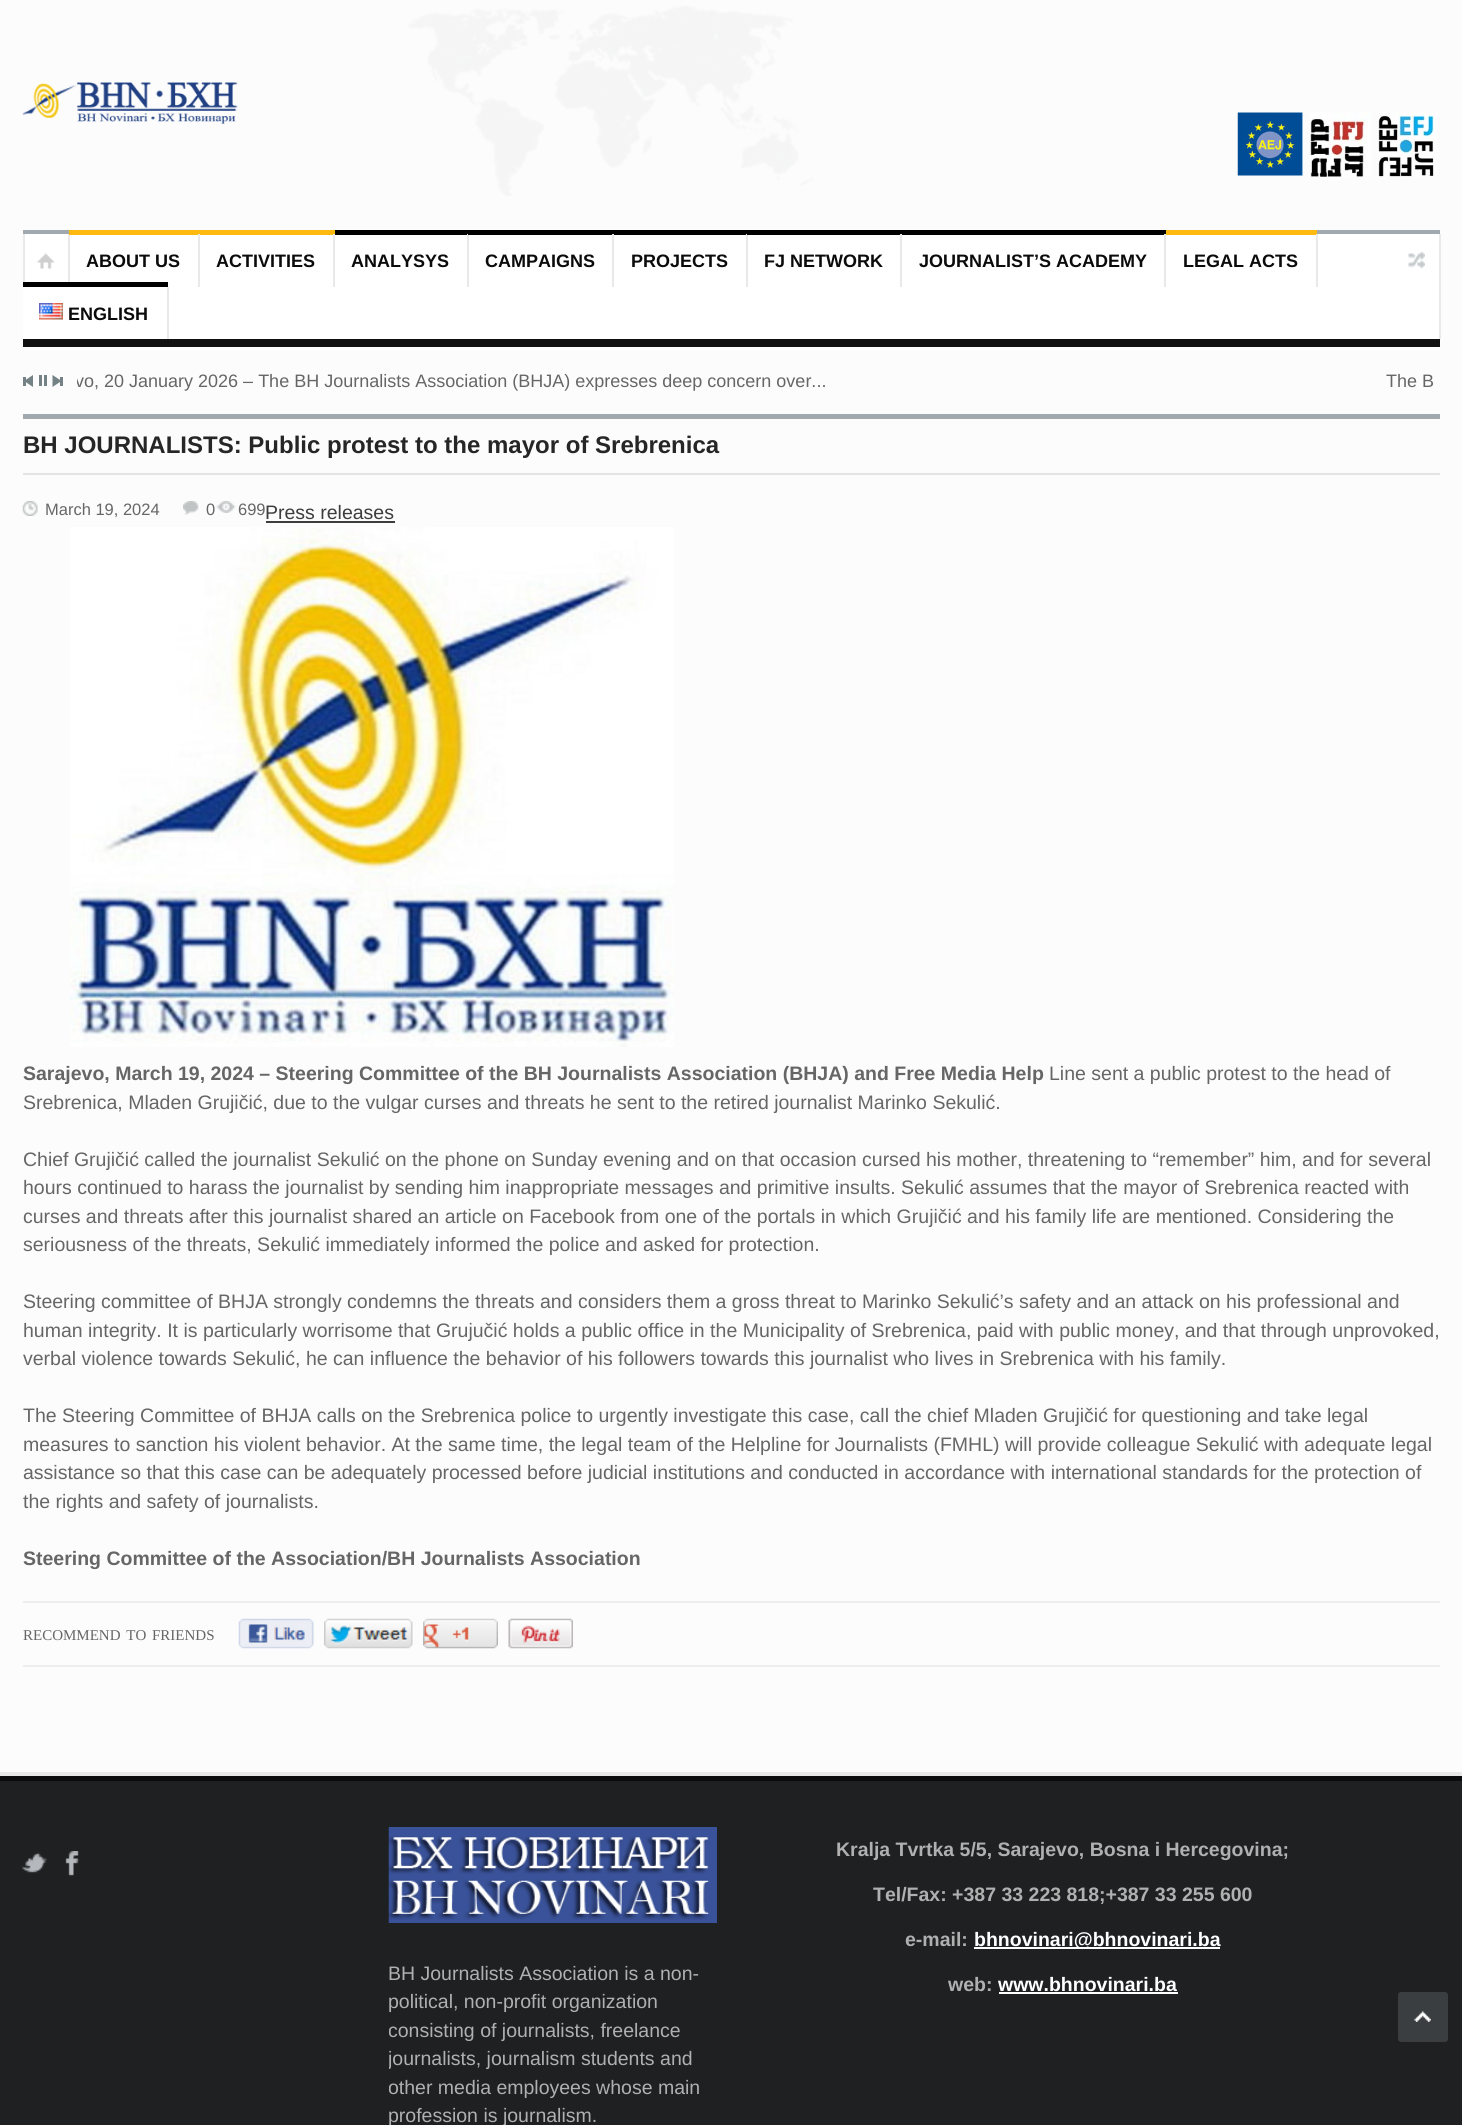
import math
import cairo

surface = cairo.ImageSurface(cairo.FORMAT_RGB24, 1462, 2125)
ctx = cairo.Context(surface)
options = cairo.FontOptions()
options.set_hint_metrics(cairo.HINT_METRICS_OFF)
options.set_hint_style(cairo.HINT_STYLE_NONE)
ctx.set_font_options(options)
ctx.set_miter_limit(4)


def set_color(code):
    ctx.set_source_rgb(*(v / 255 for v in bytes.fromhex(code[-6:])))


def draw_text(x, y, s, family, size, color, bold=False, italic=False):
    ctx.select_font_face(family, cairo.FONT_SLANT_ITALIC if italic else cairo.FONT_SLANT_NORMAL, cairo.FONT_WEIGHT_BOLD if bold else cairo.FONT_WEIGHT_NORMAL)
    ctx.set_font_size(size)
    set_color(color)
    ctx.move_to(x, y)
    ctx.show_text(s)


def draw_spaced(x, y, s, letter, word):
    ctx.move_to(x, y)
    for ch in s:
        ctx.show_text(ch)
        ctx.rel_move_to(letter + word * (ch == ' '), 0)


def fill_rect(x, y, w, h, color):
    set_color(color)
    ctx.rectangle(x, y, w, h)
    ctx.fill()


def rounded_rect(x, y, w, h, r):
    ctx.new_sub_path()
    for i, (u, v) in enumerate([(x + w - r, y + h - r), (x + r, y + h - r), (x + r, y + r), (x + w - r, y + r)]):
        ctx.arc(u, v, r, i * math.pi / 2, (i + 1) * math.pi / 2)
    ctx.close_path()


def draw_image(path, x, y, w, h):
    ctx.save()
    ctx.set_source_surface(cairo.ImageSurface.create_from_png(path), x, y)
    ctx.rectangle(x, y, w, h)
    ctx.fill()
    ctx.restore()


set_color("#fcfcfc")
ctx.paint()
draw_image("assets/img1.png", 408, 6, 405, 190)
draw_image("assets/img2.png", 22, 82, 216, 42)
draw_image("assets/img3.png", 1237, 112, 66, 64)
draw_image("assets/img4.png", 1310, 112, 61, 65)
draw_image("assets/img5.png", 1378, 112, 60, 65)
fill_rect(23, 230, 1417, 4, "#a2a9ae")
fill_rect(23, 339, 1417, 8, "#101010")
fill_rect(23, 234, 1416, 105, "#ffffff")
fill_rect(1439, 234, 2, 105, "#e9e9e9")
draw_image("assets/img6.png", 37, 253, 17, 16)
fill_rect(68, 234, 2, 53, "#e9e9e9")
fill_rect(23, 234, 2, 53, "#e9e9e9")
fill_rect(69, 230, 266, 5, "#ffba0f")
fill_rect(198, 234, 2, 53, "#e9e9e9")
draw_text(86, 267, "ABOUT US", "Liberation Sans", 18, "#0b0b0b", bold=True)
fill_rect(333, 234, 2, 53, "#e9e9e9")
draw_text(216, 267, "ACTIVITIES", "Liberation Sans", 18, "#0b0b0b", bold=True)
fill_rect(335, 230, 133, 5, "#000000")
fill_rect(467, 234, 2, 53, "#e9e9e9")
draw_text(351, 267, "ANALYSYS", "Liberation Sans", 18, "#0b0b0b", bold=True)
fill_rect(468, 230, 279, 5, "#000000")
fill_rect(612, 234, 2, 53, "#e9e9e9")
draw_text(485, 267, "CAMPAIGNS", "Liberation Sans", 18, "#0b0b0b", bold=True)
fill_rect(746, 234, 2, 53, "#e9e9e9")
draw_text(631, 267, "PROJECTS", "Liberation Sans", 18, "#0b0b0b", bold=True)
fill_rect(747, 230, 419, 5, "#000000")
fill_rect(900, 234, 2, 53, "#e9e9e9")
draw_text(764, 267, "FJ NETWORK", "Liberation Sans", 18, "#0b0b0b", bold=True)
fill_rect(1164, 234, 2, 53, "#e9e9e9")
draw_text(919, 267, "JOURNALIST’S ACADEMY", "Liberation Sans", 18, "#0b0b0b", bold=True)
fill_rect(1166, 230, 151, 5, "#ffba0f")
fill_rect(1316, 234, 2, 53, "#e9e9e9")
draw_text(1183, 267, "LEGAL ACTS", "Liberation Sans", 18, "#0b0b0b", bold=True)
draw_image("assets/img7.png", 1408, 252, 17, 17)
fill_rect(23, 282, 145, 5, "#000000")
fill_rect(167, 287, 2, 52, "#e9e9e9")
draw_image("assets/img8.png", 39, 303, 24, 17)
draw_text(68, 320, "ENGLISH", "Liberation Sans", 18, "#0b0b0b", bold=True)
set_color("#748286")
ctx.new_path()
ctx.move_to(33, 375)
ctx.line_to(33, 387)
ctx.line_to(24, 381)
ctx.close_path()
ctx.fill()
fill_rect(23, 377, 3, 9, "#748286")
ctx.new_path()
ctx.move_to(52.5, 387)
ctx.line_to(52.5, 375)
ctx.line_to(61.5, 381)
ctx.close_path()
ctx.fill()
fill_rect(60, 377, 3, 9, "#748286")
ctx.save()
ctx.rectangle(77, 366, 1309, 30)
ctx.clip()
draw_text(75, 387, "vo, 20 January 2026 – The BH Journalists Association (BHJA) expresses deep concern over...", "Liberation Sans", 18, "#666666")
ctx.restore()
draw_text(1386, 387, "The B", "Liberation Sans", 18, "#666666")
fill_rect(44, 375, 3, 11, "#748286")
fill_rect(39, 375, 3, 11, "#748286")
fill_rect(23, 414, 1417, 5, "#a2a9ae")
fill_rect(23, 473, 1417, 2, "#e3e3e3")
draw_text(23, 453, "BH JOURNALISTS: Public protest to the mayor of Srebrenica", "Liberation Sans", 24, "#262626", bold=True)
draw_image("assets/img9.png", 22, 501, 16, 15)
draw_text(45, 515, "March 19, 2024", "Liberation Sans", 16.5, "#666666")
draw_image("assets/img10.png", 183, 501, 16, 14)
draw_text(206, 515, "0", "Liberation Sans", 16.5, "#666666")
draw_image("assets/img11.png", 216, 501, 20, 12)
draw_text(238, 515, "699", "Liberation Sans", 16.5, "#666666")
draw_text(265, 519, "Press releases", "Liberation Sans", 19.5, "#3d3d3d")
fill_rect(266, 521, 129, 2, "#3d3d3d")
draw_image("assets/img12.png", 70, 527, 604, 520)
draw_text(23, 1080, "Sarajevo, March 19, 2024 – Steering Committee of the BH Journalists Association (BHJA) and Free Media Help", "Liberation Sans", 19.5, "#666666", bold=True)
draw_text(1049, 1080, "Line sent a public protest to the head of", "Liberation Sans", 19.5, "#666666")
draw_text(23, 1109, "Srebrenica, Mladen Grujičić, due to the vulgar curses and threats he sent to the retired journalist Marinko Sekulić.", "Liberation Sans", 19.5, "#666666")
draw_text(23, 1166, "Chief Grujičić called the journalist Sekulić on the phone on Sunday evening and on that occasion cursed his mother, threatening to “remember” him, and for several", "Liberation Sans", 19.5, "#666666")
draw_text(23, 1194, "hours continued to harass the journalist by sending him inappropriate messages and primitive insults. Sekulić assumes that the mayor of Srebrenica reacted with", "Liberation Sans", 19.5, "#666666")
draw_text(23, 1223, "curses and threats after this journalist shared an article on Facebook from one of the portals in which Grujičić and his family life are mentioned. Considering the", "Liberation Sans", 19.5, "#666666")
draw_text(23, 1251, "seriousness of the threats, Sekulić immediately informed the police and asked for protection.", "Liberation Sans", 19.5, "#666666")
draw_text(23, 1308, "Steering committee of BHJA strongly condemns the threats and considers them a gross threat to Marinko Sekulić’s safety and an attack on his professional and", "Liberation Sans", 19.5, "#666666")
draw_text(23, 1337, "human integrity. It is particularly worrisome that Grujučić holds a public office in the Municipality of Srebrenica, paid with public money, and that through unprovoked,", "Liberation Sans", 19.5, "#666666")
draw_text(23, 1365, "verbal violence towards Sekulić, he can influence the behavior of his followers towards this journalist who lives in Srebrenica with his family.", "Liberation Sans", 19.5, "#666666")
draw_text(23, 1422, "The Steering Committee of BHJA calls on the Srebrenica police to urgently investigate this case, call the chief Mladen Grujičić for questioning and take legal", "Liberation Sans", 19.5, "#666666")
draw_text(23, 1451, "measures to sanction his violent behavior. At the same time, the legal team of the Helpline for Journalists (FMHL) will provide colleague Sekulić with adequate legal", "Liberation Sans", 19.5, "#666666")
draw_text(23, 1479, "assistance so that this case can be adequately processed before judicial institutions and conducted in accordance with international standards for the protection of", "Liberation Sans", 19.5, "#666666")
draw_text(23, 1508, "the rights and safety of journalists.", "Liberation Sans", 19.5, "#666666")
draw_text(23, 1565, "Steering Committee of the Association/BH Journalists Association", "Liberation Sans", 19.5, "#666666", bold=True)
fill_rect(23, 1601, 1417, 2, "#ededed")
fill_rect(23, 1665, 1417, 2, "#ededed")
ctx.select_font_face("Liberation Serif")
ctx.set_font_size(15)
set_color("#666666")
draw_spaced(23, 1640, "RECOMMEND TO FRIENDS", 0, 2)
draw_image("assets/img13.png", 238, 1618, 76, 31)
draw_image("assets/img14.png", 324, 1618, 89, 31)
draw_image("assets/img15.png", 423, 1618, 75, 31)
draw_image("assets/img16.png", 508, 1618, 65, 31)
fill_rect(0, 1772, 1462, 4, "#e8e8e8")
fill_rect(0, 1781, 1462, 344, "#1e2021")
fill_rect(0, 1776, 1462, 5, "#0a0c0e")
draw_image("assets/img17.png", 21, 1852, 26, 21)
draw_image("assets/img18.png", 65, 1851, 14, 25)
draw_text(836, 1856, "Kralja Tvrtka 5/5, Sarajevo, Bosna i Hercegovina;", "Liberation Sans", 19.5, "#b0b0b0", bold=True)
draw_text(873, 1901, "Tel/Fax: +387 33 223 818;+387 33 255 600", "Liberation Sans", 19.5, "#b0b0b0", bold=True)
draw_text(905, 1946, "e-mail:", "Liberation Sans", 19.5, "#b0b0b0", bold=True)
fill_rect(974, 1947, 246, 2, "#ffffff")
draw_text(974, 1946, "bhnovinari@bhnovinari.ba", "Liberation Sans", 19.5, "#ffffff", bold=True)
draw_text(948, 1991, "web:", "Liberation Sans", 19.5, "#b0b0b0", bold=True)
draw_text(998, 1991, "www.bhnovinari.ba", "Liberation Sans", 19.5, "#ffffff", bold=True)
fill_rect(999, 1992, 179, 2, "#ffffff")
draw_image("assets/img19.png", 388, 1827, 329, 96)
draw_text(388, 1980, "BH Journalists Association is a non-", "Liberation Sans", 19.5, "#b0b0b0")
draw_text(388, 2008, "political, non-profit organization", "Liberation Sans", 19.5, "#b0b0b0")
ctx.save()
ctx.rectangle(389, 1824, 1054, 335)
ctx.clip()
draw_text(388, 2037, "consisting of journalists, freelance", "Liberation Sans", 19.5, "#b0b0b0")
draw_text(388, 2065, "journalists, journalism students and", "Liberation Sans", 19.5, "#b0b0b0")
draw_text(388, 2094, "other media employees whose main", "Liberation Sans", 19.5, "#b0b0b0")
ctx.restore()
draw_text(388, 2122, "profession is journalism.", "Liberation Sans", 19.5, "#b0b0b0")
set_color("#3a3e40")
rounded_rect(1398, 1992, 50, 50, 3)
ctx.fill()
draw_image("assets/img20.png", 1414, 2011, 17, 11)
surface.write_to_png("output.png")
